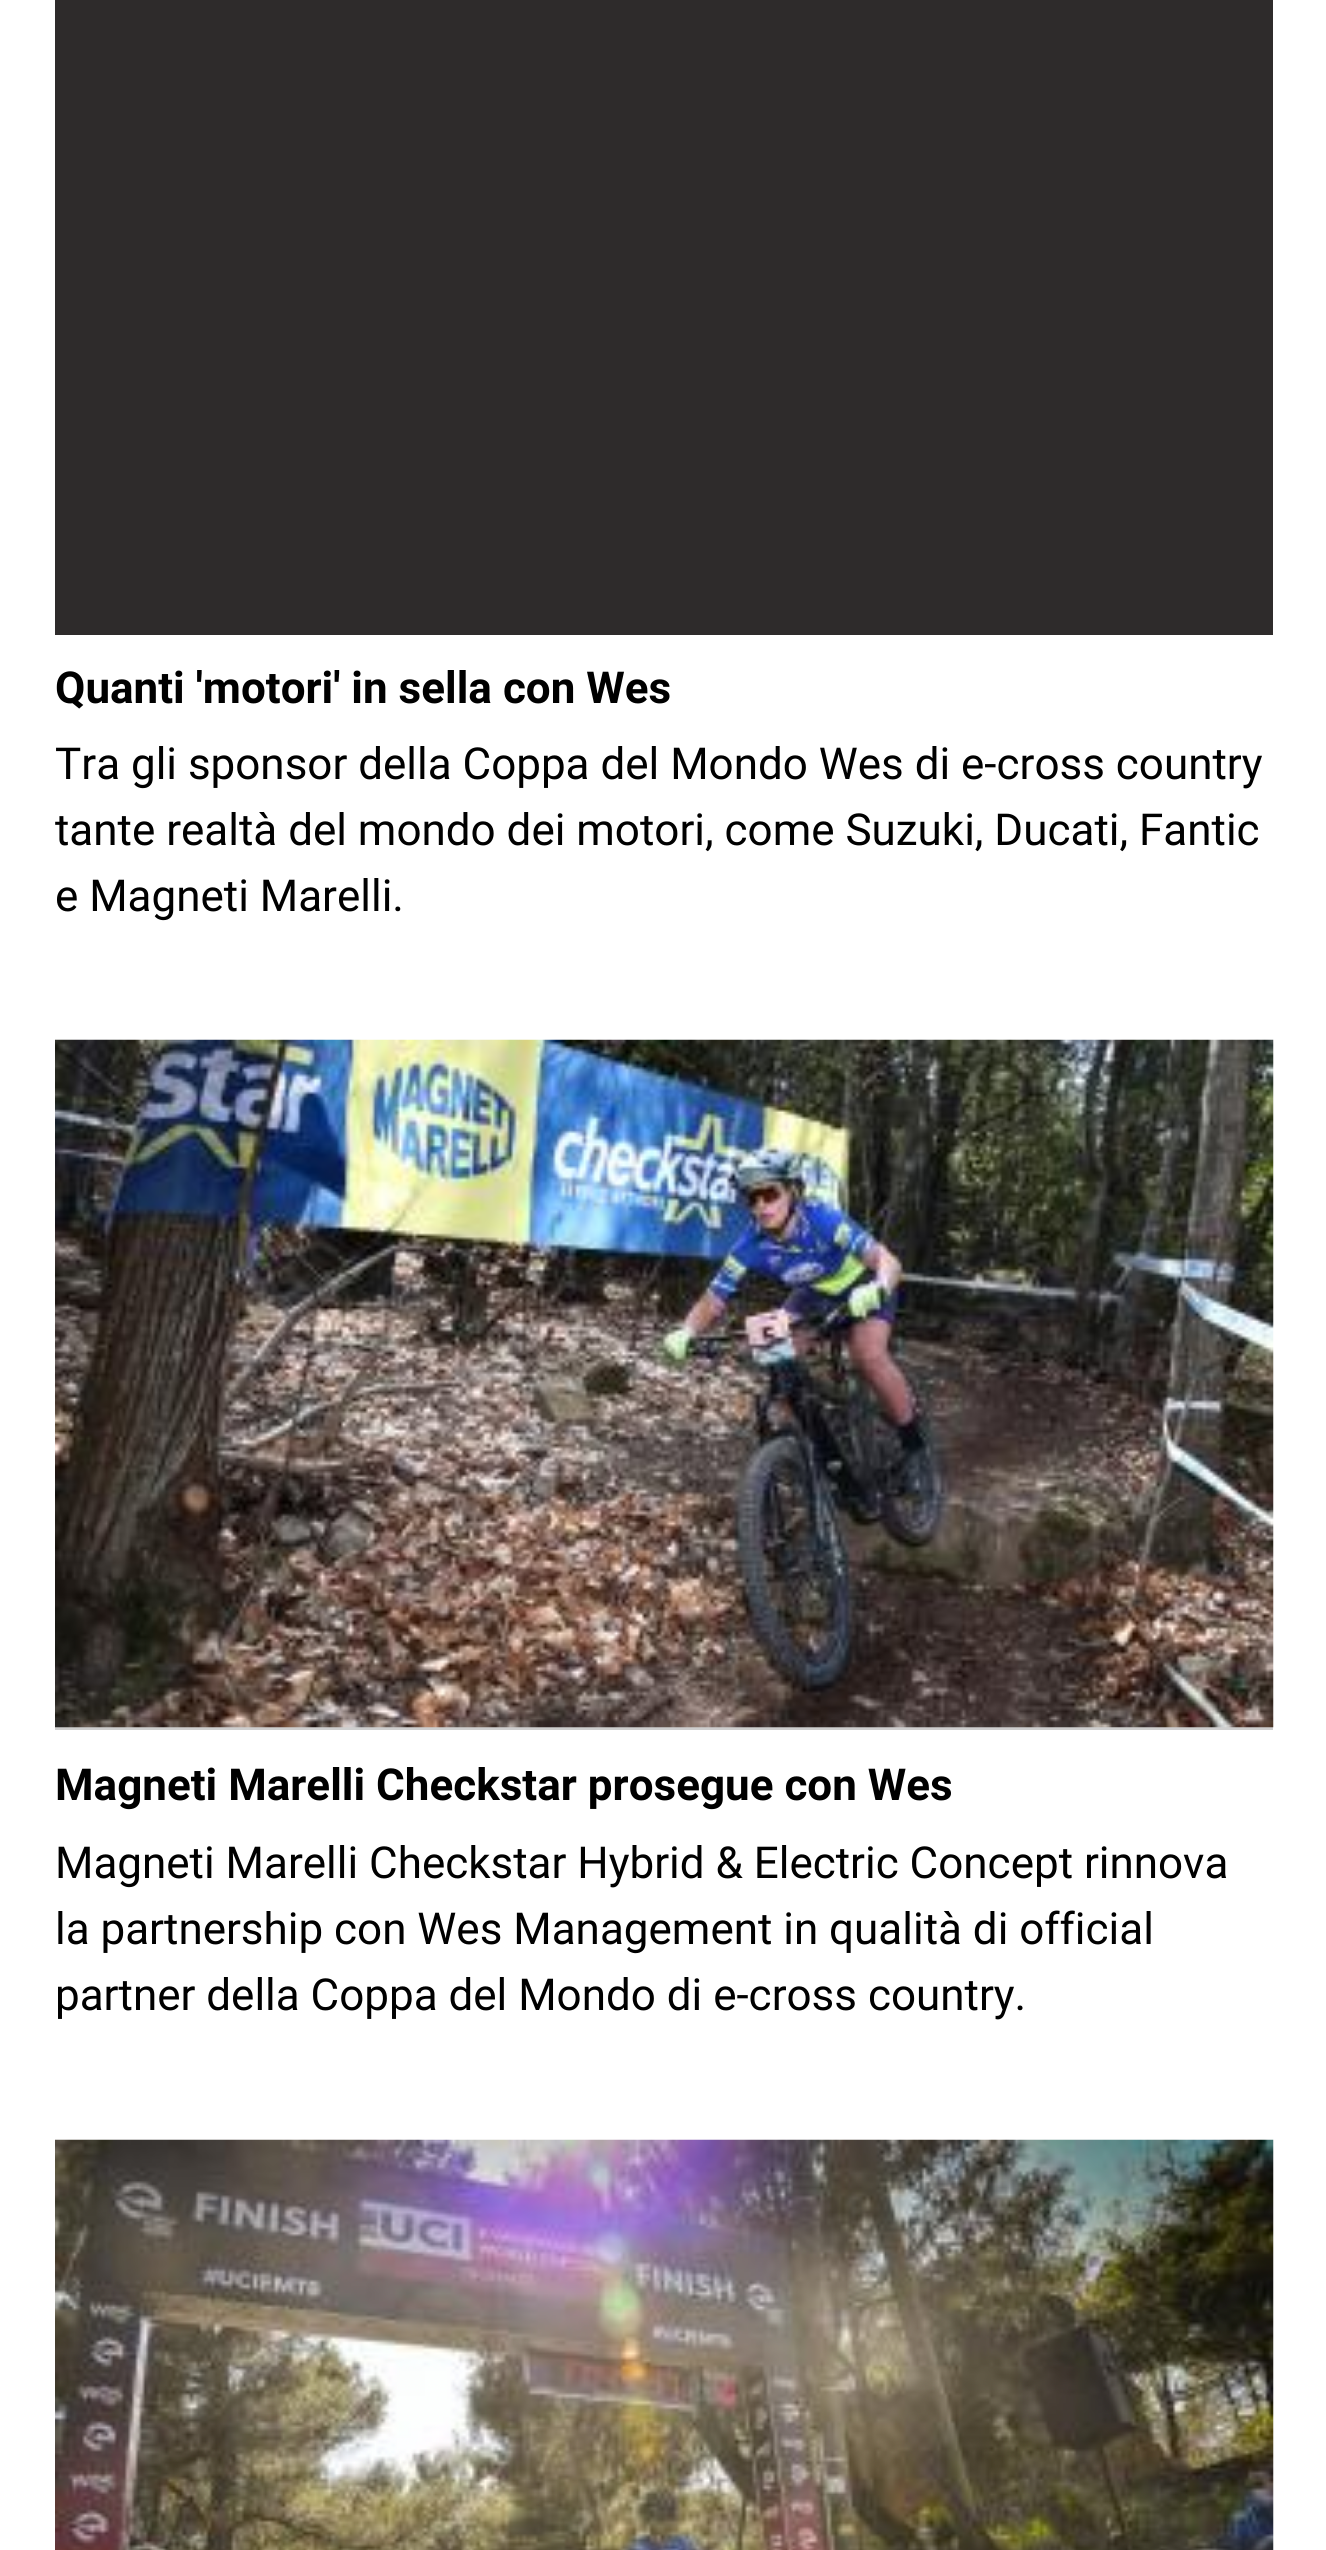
import math
import cairo

surface = cairo.ImageSurface(cairo.FORMAT_RGB24, 1326, 2550)
ctx = cairo.Context(surface)
options = cairo.FontOptions()
options.set_hint_metrics(cairo.HINT_METRICS_OFF)
options.set_hint_style(cairo.HINT_STYLE_NONE)
ctx.set_font_options(options)
ctx.set_miter_limit(4)


def set_color(code):
    ctx.set_source_rgb(*(v / 255 for v in bytes.fromhex(code[-6:])))


def draw_text(x, y, s, family, size, color, bold=False, italic=False):
    ctx.select_font_face(family, cairo.FONT_SLANT_ITALIC if italic else cairo.FONT_SLANT_NORMAL, cairo.FONT_WEIGHT_BOLD if bold else cairo.FONT_WEIGHT_NORMAL)
    ctx.set_font_size(size)
    set_color(color)
    ctx.move_to(x, y)
    ctx.show_text(s)


def fill_rect(x, y, w, h, color):
    set_color(color)
    ctx.rectangle(x, y, w, h)
    ctx.fill()


def draw_image(path, x, y, w, h):
    ctx.save()
    ctx.set_source_surface(cairo.ImageSurface.create_from_png(path), x, y)
    ctx.rectangle(x, y, w, h)
    ctx.fill()
    ctx.restore()


set_color("#ffffff")
ctx.paint()
fill_rect(55, 0, 1218, 635, "#2e2b2b")
draw_text(55, 703, "Quanti 'motori' in sella con Wes", "Roboto", 44, "#000000", bold=True)
draw_text(55, 779, "Tra gli sponsor della Coppa del Mondo Wes di e-cross country", "Roboto", 44, "#000000")
draw_text(55, 845, "tante realtà del mondo dei motori, come Suzuki, Ducati, Fantic", "Roboto", 44, "#000000")
draw_text(55, 911, "e Magneti Marelli.", "Roboto", 44, "#000000")
fill_rect(55, 1727, 1218, 3, "#cecece")
draw_image("assets/img1.png", 55, 1039, 1219, 689)
draw_text(55, 1800, "Magneti Marelli Checkstar prosegue con Wes", "Roboto", 44, "#000000", bold=True)
draw_text(55, 1878, "Magneti Marelli Checkstar Hybrid & Electric Concept rinnova", "Roboto", 44, "#000000")
draw_text(55, 1944, "la partnership con Wes Management in qualità di official", "Roboto", 44, "#000000")
draw_text(55, 2010, "partner della Coppa del Mondo di e-cross country.", "Roboto", 44, "#000000")
draw_image("assets/img2.png", 55, 2139, 1219, 411)
surface.write_to_png("output.png")
